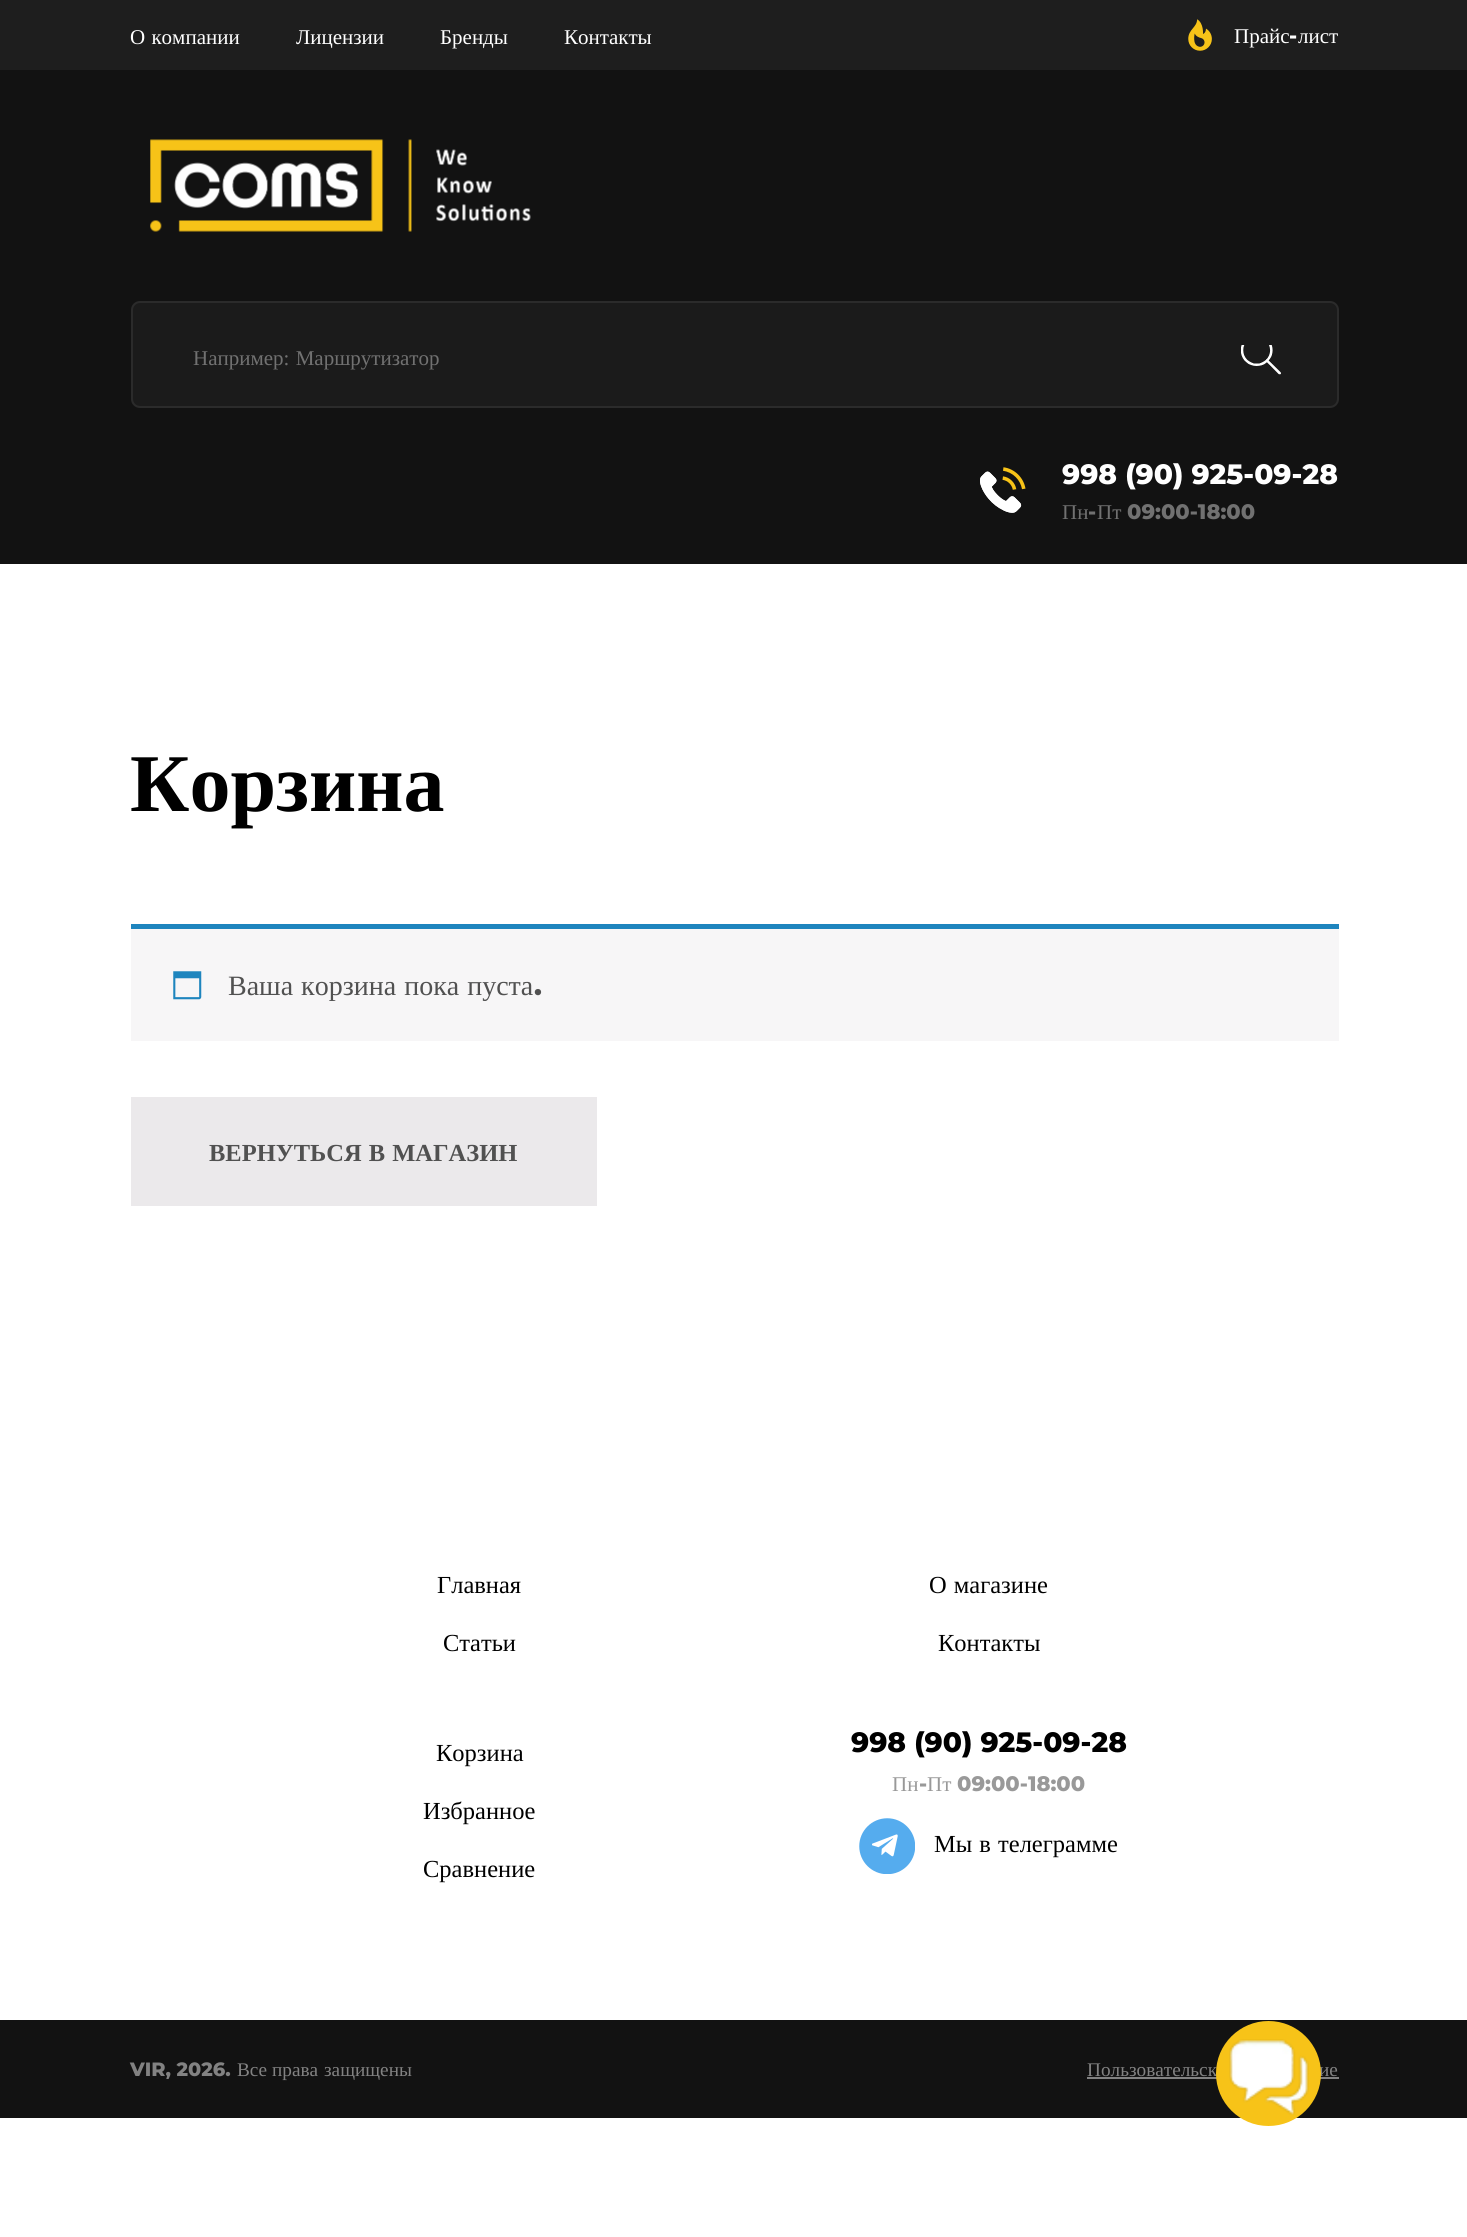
import math
import cairo

surface = cairo.ImageSurface(cairo.FORMAT_RGB24, 1467, 2237)
ctx = cairo.Context(surface)
options = cairo.FontOptions()
options.set_hint_metrics(cairo.HINT_METRICS_OFF)
options.set_hint_style(cairo.HINT_STYLE_NONE)
ctx.set_font_options(options)
ctx.set_miter_limit(4)


def set_color(code):
    ctx.set_source_rgb(*(v / 255 for v in bytes.fromhex(code[-6:])))


def draw_text(x, y, s, family, size, color, bold=False, italic=False):
    ctx.select_font_face(family, cairo.FONT_SLANT_ITALIC if italic else cairo.FONT_SLANT_NORMAL, cairo.FONT_WEIGHT_BOLD if bold else cairo.FONT_WEIGHT_NORMAL)
    ctx.set_font_size(size)
    set_color(color)
    ctx.move_to(x, y)
    ctx.show_text(s)


def draw_spaced(x, y, s, letter, word):
    ctx.move_to(x, y)
    for ch in s:
        ctx.show_text(ch)
        ctx.rel_move_to(letter + word * (ch == ' '), 0)


def fill_rect(x, y, w, h, color):
    set_color(color)
    ctx.rectangle(x, y, w, h)
    ctx.fill()


def rounded_rect(x, y, w, h, r):
    ctx.new_sub_path()
    for i, (u, v) in enumerate([(x + w - r, y + h - r), (x + r, y + h - r), (x + r, y + r), (x + w - r, y + r)]):
        ctx.arc(u, v, r, i * math.pi / 2, (i + 1) * math.pi / 2)
    ctx.close_path()


def draw_image(path, x, y, w, h):
    ctx.save()
    ctx.set_source_surface(cairo.ImageSurface.create_from_png(path), x, y)
    ctx.rectangle(x, y, w, h)
    ctx.fill()
    ctx.restore()


set_color("#ffffff")
ctx.paint()
fill_rect(0, 0, 1467, 70, "#1e1e1e")
ctx.select_font_face("Liberation Serif")
ctx.set_font_size(21)
set_color("#ffffff")
draw_spaced(130, 44, "О компании", 0, 1)
draw_text(296, 44, "Лицензии", "Liberation Serif", 21, "#ffffff")
draw_text(440, 44, "Бренды", "Liberation Serif", 21, "#ffffff")
draw_text(564, 44, "Контакты", "Liberation Serif", 21, "#ffffff")
draw_image("assets/img1.png", 1188, 19, 24, 32)
draw_text(1234, 43, "Прайс", "Liberation Serif", 21, "#ffffff")
draw_text(1289, 43, "-", "Montserrat ExtraBold", 21, "#ffffff")
draw_text(1298, 43, "лист", "Liberation Serif", 21, "#ffffff")
fill_rect(0, 70, 1467, 494, "#121212")
draw_image("assets/img2.png", 150, 139, 381, 93)
set_color("#1b1b1b")
rounded_rect(131, 301, 1208, 107, 9)
ctx.fill()
rounded_rect(132, 302, 1206, 105, 8)
ctx.set_source_rgba(0.918, 0.918, 0.918, 0.08)
ctx.stroke()
set_color("#717171")
draw_spaced(193, 365, "Например: Маршрутизатор", 0, 1)
draw_image("assets/img3.png", 1241, 345, 40, 30)
draw_image("assets/img5.png", 980, 471, 42, 42)
draw_image("assets/img6.png", 980, 471, 42, 42)
draw_image("assets/img4.png", 1003, 467, 23, 23)
draw_text(1062, 484, "998 (90) 925-09-28", "Montserrat ExtraBold", 28, "#ffffff")
draw_text(1062, 519, "Пн", "Liberation Serif", 21, "#717171")
draw_text(1088, 519, "-", "Montserrat ExtraBold", 21, "#717171")
draw_text(1097, 519, "Пт", "Liberation Serif", 21, "#717171")
draw_text(1127, 519, "09:00-18:00", "Montserrat ExtraBold", 21, "#717171")
draw_text(130, 811, "Корзина", "Liberation Serif", 82, "#000000", bold=True)
fill_rect(131, 929, 1208, 112, "#f7f6f7")
fill_rect(131, 924, 1208, 5, "#1e85be")
draw_image("assets/img7.png", 173, 971, 29, 29)
ctx.select_font_face("Liberation Serif")
ctx.set_font_size(28)
set_color("#515151")
draw_spaced(228, 995, "Ваша корзина пока пуста", 0, 1)
draw_text(534, 995, ".", "Montserrat ExtraBold", 28, "#515151")
fill_rect(131, 1097, 466, 109, "#ebe9eb")
ctx.select_font_face("Liberation Serif", cairo.FONT_SLANT_NORMAL, cairo.FONT_WEIGHT_BOLD)
ctx.set_font_size(24.5)
set_color("#515151")
draw_spaced(209, 1161, "ВЕРНУТЬСЯ В МАГАЗИН", 0, 1)
draw_text(437, 1593, "Главная", "Liberation Serif", 24.5, "#000000")
draw_text(443, 1651, "Статьи", "Liberation Serif", 24.5, "#000000")
draw_spaced(929, 1593, "О магазине", 0, 1)
draw_text(938, 1651, "Контакты", "Liberation Serif", 24.5, "#000000")
draw_text(436, 1761, "Корзина", "Liberation Serif", 24.5, "#000000")
draw_text(423, 1819, "Избранное", "Liberation Serif", 24.5, "#000000")
draw_text(423, 1877, "Сравнение", "Liberation Serif", 24.5, "#000000")
draw_text(851, 1752, "998 (90) 925-09-28", "Montserrat ExtraBold", 28, "#000000")
draw_text(892, 1791, "Пн", "Liberation Serif", 21, "#999999")
draw_text(919, 1791, "-", "Montserrat ExtraBold", 21, "#999999")
draw_text(927, 1791, "Пт", "Liberation Serif", 21, "#999999")
draw_text(957, 1791, "09:00-18:00", "Montserrat ExtraBold", 21, "#999999")
draw_image("assets/img8.png", 859, 1818, 56, 56)
ctx.select_font_face("Liberation Serif")
ctx.set_font_size(24.5)
set_color("#000000")
draw_spaced(934, 1852, "Мы в телеграмме", 0, 1)
fill_rect(0, 2020, 1467, 98, "#121212")
draw_text(130, 2076, "VIR, 2026.", "Montserrat ExtraBold", 19.25, "#828282")
draw_text(237, 2076, "Все", "Liberation Serif", 19.25, "#828282")
draw_text(272, 2076, "права", "Liberation Serif", 19.25, "#828282")
draw_text(324, 2076, "защищены", "Liberation Serif", 19.25, "#828282")
draw_spaced(1087, 2076, "Пользовательск", 0, 1)
draw_spaced(1319, 2076, "ие", 0, 1)
fill_rect(1087, 2077, 252, 2, "#828282")
set_color("#f7c318")
ctx.new_path()
ctx.arc(1268.5, 2073.5, 52.5, 0, 2 * math.pi)
ctx.fill()
draw_image("assets/img9.png", 1229, 2039, 80, 76)
surface.write_to_png("output.png")
